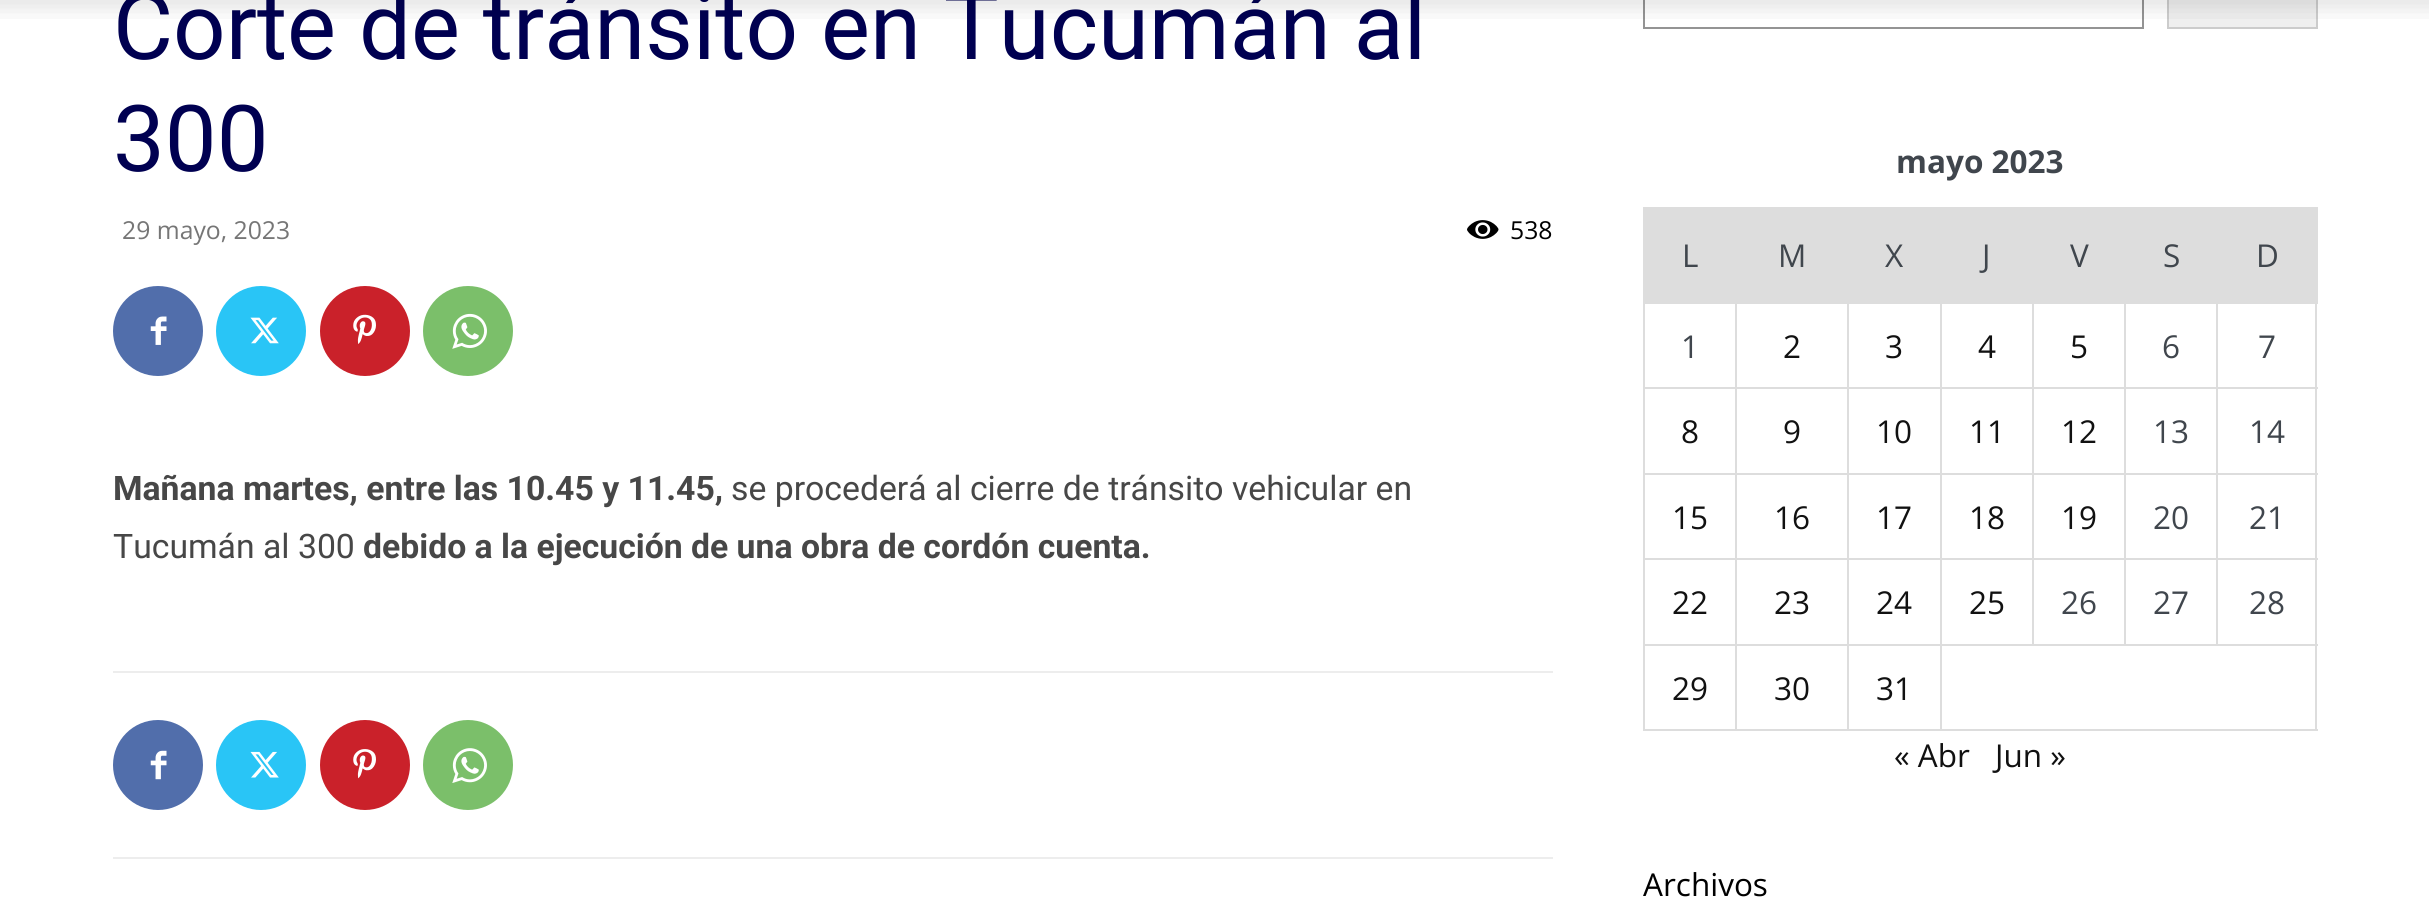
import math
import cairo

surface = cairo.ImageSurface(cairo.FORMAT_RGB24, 2429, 910)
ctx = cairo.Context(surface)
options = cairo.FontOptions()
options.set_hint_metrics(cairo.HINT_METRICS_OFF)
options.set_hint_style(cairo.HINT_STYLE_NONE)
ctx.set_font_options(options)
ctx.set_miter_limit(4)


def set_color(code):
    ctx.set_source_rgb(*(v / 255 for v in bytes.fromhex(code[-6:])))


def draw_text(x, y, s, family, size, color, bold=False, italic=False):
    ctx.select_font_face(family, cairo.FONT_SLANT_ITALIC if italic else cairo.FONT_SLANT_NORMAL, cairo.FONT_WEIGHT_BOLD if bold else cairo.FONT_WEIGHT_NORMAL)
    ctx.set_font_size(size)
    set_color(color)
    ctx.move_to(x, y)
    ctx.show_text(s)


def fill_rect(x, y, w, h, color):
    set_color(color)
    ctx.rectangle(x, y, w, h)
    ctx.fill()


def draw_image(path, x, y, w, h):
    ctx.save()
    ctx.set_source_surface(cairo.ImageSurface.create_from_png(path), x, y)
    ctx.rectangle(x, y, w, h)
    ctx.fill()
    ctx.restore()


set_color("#ffffff")
ctx.paint()
draw_text(113, 59, "Corte de tránsito en Tucumán al", "Roboto", 92.25, "#000051")
ctx.rectangle(1644, -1, 499, 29)
set_color("#949494")
ctx.stroke()
set_color("#efefef")
ctx.rectangle(2168, -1, 149, 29)
ctx.fill_preserve()
set_color("#cccccc")
ctx.stroke()
draw_image("assets/img1.png", 0, 0, 2429, 19)
draw_text(113, 171, "300", "Roboto", 92.25, "#000051")
draw_text(122, 239, "29 mayo, 2023", "Open Sans", 24.75, "#767676")
draw_image("assets/img2.png", 1467, 220, 32, 19)
draw_text(1510, 239, "538", "Open Sans", 24.75, "#000000")
set_color("#516eab")
ctx.new_path()
ctx.arc(158, 331, 45, 0, 2 * math.pi)
ctx.fill()
draw_image("assets/img3.png", 150, 316, 17, 29)
set_color("#29c5f6")
ctx.arc(261, 331, 45, 0, 2 * math.pi)
ctx.fill()
draw_image("assets/img4.png", 250, 317, 29, 27)
set_color("#ca212a")
ctx.arc(365, 331, 45, 0, 2 * math.pi)
ctx.fill()
draw_image("assets/img5.png", 353, 314, 23, 30)
set_color("#7bbf6a")
ctx.arc(468, 331, 45, 0, 2 * math.pi)
ctx.fill()
draw_image("assets/img6.png", 452, 313, 35, 36)
draw_text(113, 500, "Mañana martes, entre las 10.45 y 11.45,", "Roboto", 33.75, "#474747", bold=True)
draw_text(731, 500, "se procederá al cierre de tránsito vehicular en", "Roboto", 33.75, "#474747")
draw_text(113, 558, "Tucumán al 300", "Roboto", 33.75, "#474747")
draw_text(363, 558, "debido a la ejecución de una obra de cordón cuenta.", "Roboto", 33.75, "#474747", bold=True)
fill_rect(113, 671, 1440, 2, "#ededed")
fill_rect(113, 857, 1440, 2, "#ededed")
set_color("#516eab")
ctx.new_path()
ctx.arc(158, 765, 45, 0, 2 * math.pi)
ctx.fill()
draw_image("assets/img7.png", 150, 750, 17, 30)
set_color("#29c5f6")
ctx.arc(261, 765, 45, 0, 2 * math.pi)
ctx.fill()
draw_image("assets/img8.png", 250, 751, 29, 27)
set_color("#ca212a")
ctx.arc(365, 765, 45, 0, 2 * math.pi)
ctx.fill()
draw_image("assets/img9.png", 353, 749, 23, 30)
set_color("#7bbf6a")
ctx.arc(468, 765, 45, 0, 2 * math.pi)
ctx.fill()
draw_image("assets/img10.png", 452, 748, 35, 35)
draw_text(1896, 173, "mayo 2023", "Open Sans", 31.5, "#40464d", bold=True)
fill_rect(1645, 209, 92, 93, "#dddddd")
fill_rect(1643, 207, 675, 2, "#dddddd")
fill_rect(2216, 387, 102, 2, "#dddddd")
fill_rect(2216, 473, 102, 2, "#dddddd")
fill_rect(2216, 558, 102, 2, "#dddddd")
fill_rect(1940, 644, 378, 2, "#dddddd")
fill_rect(2216, 558, 2, 88, "#dddddd")
fill_rect(2124, 558, 95, 2, "#dddddd")
fill_rect(2216, 473, 2, 87, "#dddddd")
fill_rect(2124, 473, 95, 2, "#dddddd")
fill_rect(2216, 387, 2, 88, "#dddddd")
fill_rect(2124, 387, 95, 2, "#dddddd")
fill_rect(2124, 558, 2, 88, "#dddddd")
fill_rect(2032, 558, 94, 2, "#dddddd")
fill_rect(2124, 473, 2, 87, "#dddddd")
fill_rect(2032, 473, 94, 2, "#dddddd")
fill_rect(2124, 387, 2, 88, "#dddddd")
fill_rect(2032, 387, 94, 2, "#dddddd")
fill_rect(2032, 558, 2, 88, "#dddddd")
fill_rect(1940, 558, 94, 2, "#dddddd")
fill_rect(2032, 473, 2, 87, "#dddddd")
fill_rect(1940, 473, 94, 2, "#dddddd")
fill_rect(2032, 387, 2, 88, "#dddddd")
fill_rect(1940, 387, 94, 2, "#dddddd")
fill_rect(2315, 644, 2, 87, "#dddddd")
fill_rect(1940, 729, 378, 2, "#dddddd")
fill_rect(1940, 644, 2, 87, "#dddddd")
fill_rect(1847, 644, 95, 2, "#dddddd")
fill_rect(1940, 558, 2, 88, "#dddddd")
fill_rect(1847, 558, 95, 2, "#dddddd")
fill_rect(1940, 473, 2, 87, "#dddddd")
fill_rect(1847, 473, 95, 2, "#dddddd")
fill_rect(1940, 387, 2, 88, "#dddddd")
fill_rect(1847, 387, 95, 2, "#dddddd")
fill_rect(1847, 729, 95, 2, "#dddddd")
fill_rect(1847, 644, 2, 87, "#dddddd")
fill_rect(1735, 644, 115, 2, "#dddddd")
fill_rect(1847, 558, 2, 88, "#dddddd")
fill_rect(1735, 558, 115, 2, "#dddddd")
fill_rect(1847, 473, 2, 87, "#dddddd")
fill_rect(1735, 473, 115, 2, "#dddddd")
fill_rect(1847, 387, 2, 88, "#dddddd")
fill_rect(1735, 387, 115, 2, "#dddddd")
fill_rect(1735, 729, 115, 2, "#dddddd")
fill_rect(1735, 644, 2, 87, "#dddddd")
fill_rect(1643, 644, 94, 2, "#dddddd")
fill_rect(1735, 558, 2, 88, "#dddddd")
fill_rect(1643, 558, 94, 2, "#dddddd")
fill_rect(1735, 473, 2, 87, "#dddddd")
fill_rect(1643, 473, 94, 2, "#dddddd")
fill_rect(1735, 387, 2, 88, "#dddddd")
fill_rect(1643, 387, 94, 2, "#dddddd")
fill_rect(1735, 302, 2, 87, "#dddddd")
fill_rect(1643, 302, 94, 2, "#dddddd")
fill_rect(1643, 729, 94, 2, "#dddddd")
fill_rect(1643, 644, 2, 87, "#dddddd")
fill_rect(1643, 558, 2, 88, "#dddddd")
fill_rect(1643, 473, 2, 87, "#dddddd")
fill_rect(1643, 387, 2, 88, "#dddddd")
fill_rect(1643, 302, 2, 87, "#dddddd")
fill_rect(1643, 207, 2, 97, "#dddddd")
draw_text(1682, 267, "L", "Open Sans", 31.5, "#40464d")
fill_rect(1737, 209, 581, 95, "#dddddd")
draw_text(1778, 267, "M", "Open Sans", 31.5, "#40464d")
draw_text(1885, 267, "X", "Open Sans", 31.5, "#40464d")
draw_text(1982, 267, "J", "Open Sans", 31.5, "#40464d")
draw_text(2070, 267, "V", "Open Sans", 31.5, "#40464d")
draw_text(2163, 267, "S", "Open Sans", 31.5, "#40464d")
draw_text(2256, 267, "D", "Open Sans", 31.5, "#40464d")
draw_text(1681, 358, "1", "Open Sans", 31.5, "#40464d")
draw_text(1783, 358, "2", "Open Sans", 31.5, "#111111")
fill_rect(1847, 302, 2, 87, "#dddddd")
draw_text(1885, 358, "3", "Open Sans", 31.5, "#111111")
fill_rect(1940, 302, 2, 87, "#dddddd")
draw_text(1978, 358, "4", "Open Sans", 31.5, "#111111")
fill_rect(2032, 302, 2, 87, "#dddddd")
draw_text(2070, 358, "5", "Open Sans", 31.5, "#111111")
fill_rect(2124, 302, 2, 87, "#dddddd")
draw_text(2162, 358, "6", "Open Sans", 31.5, "#40464d")
fill_rect(2216, 302, 2, 87, "#dddddd")
draw_text(2258, 358, "7", "Open Sans", 31.5, "#40464d")
draw_text(1681, 443, "8", "Open Sans", 31.5, "#111111")
draw_text(1783, 443, "9", "Open Sans", 31.5, "#111111")
draw_text(1876, 443, "10", "Open Sans", 31.5, "#111111")
draw_text(1969, 443, "11", "Open Sans", 31.5, "#111111")
draw_text(2061, 443, "12", "Open Sans", 31.5, "#111111")
draw_text(2153, 443, "13", "Open Sans", 31.5, "#40464d")
fill_rect(2315, 558, 2, 88, "#dddddd")
fill_rect(2315, 473, 2, 87, "#dddddd")
fill_rect(2315, 302, 2, 173, "#dddddd")
draw_text(2249, 443, "14", "Open Sans", 31.5, "#40464d")
draw_text(1672, 529, "15", "Open Sans", 31.5, "#111111")
draw_text(1774, 529, "16", "Open Sans", 31.5, "#111111")
draw_text(1876, 529, "17", "Open Sans", 31.5, "#111111")
draw_text(1969, 529, "18", "Open Sans", 31.5, "#111111")
draw_text(2061, 529, "19", "Open Sans", 31.5, "#111111")
draw_text(2153, 529, "20", "Open Sans", 31.5, "#40464d")
draw_text(2249, 529, "21", "Open Sans", 31.5, "#40464d")
draw_text(1672, 614, "22", "Open Sans", 31.5, "#111111")
draw_text(1774, 614, "23", "Open Sans", 31.5, "#111111")
draw_text(1876, 614, "24", "Open Sans", 31.5, "#111111")
draw_text(1969, 614, "25", "Open Sans", 31.5, "#111111")
draw_text(2061, 614, "26", "Open Sans", 31.5, "#40464d")
draw_text(2153, 614, "27", "Open Sans", 31.5, "#40464d")
draw_text(2249, 614, "28", "Open Sans", 31.5, "#40464d")
draw_text(1672, 700, "29", "Open Sans", 31.5, "#111111")
draw_text(1774, 700, "30", "Open Sans", 31.5, "#111111")
draw_text(1876, 700, "31", "Open Sans", 31.5, "#111111")
draw_text(1894, 767, "« Abr", "Open Sans", 31.5, "#111111")
draw_text(1995, 767, "Jun »", "Open Sans", 31.5, "#111111")
draw_text(1643, 896, "Archivos", "Open Sans", 31.5, "#000000")
surface.write_to_png("output.png")
